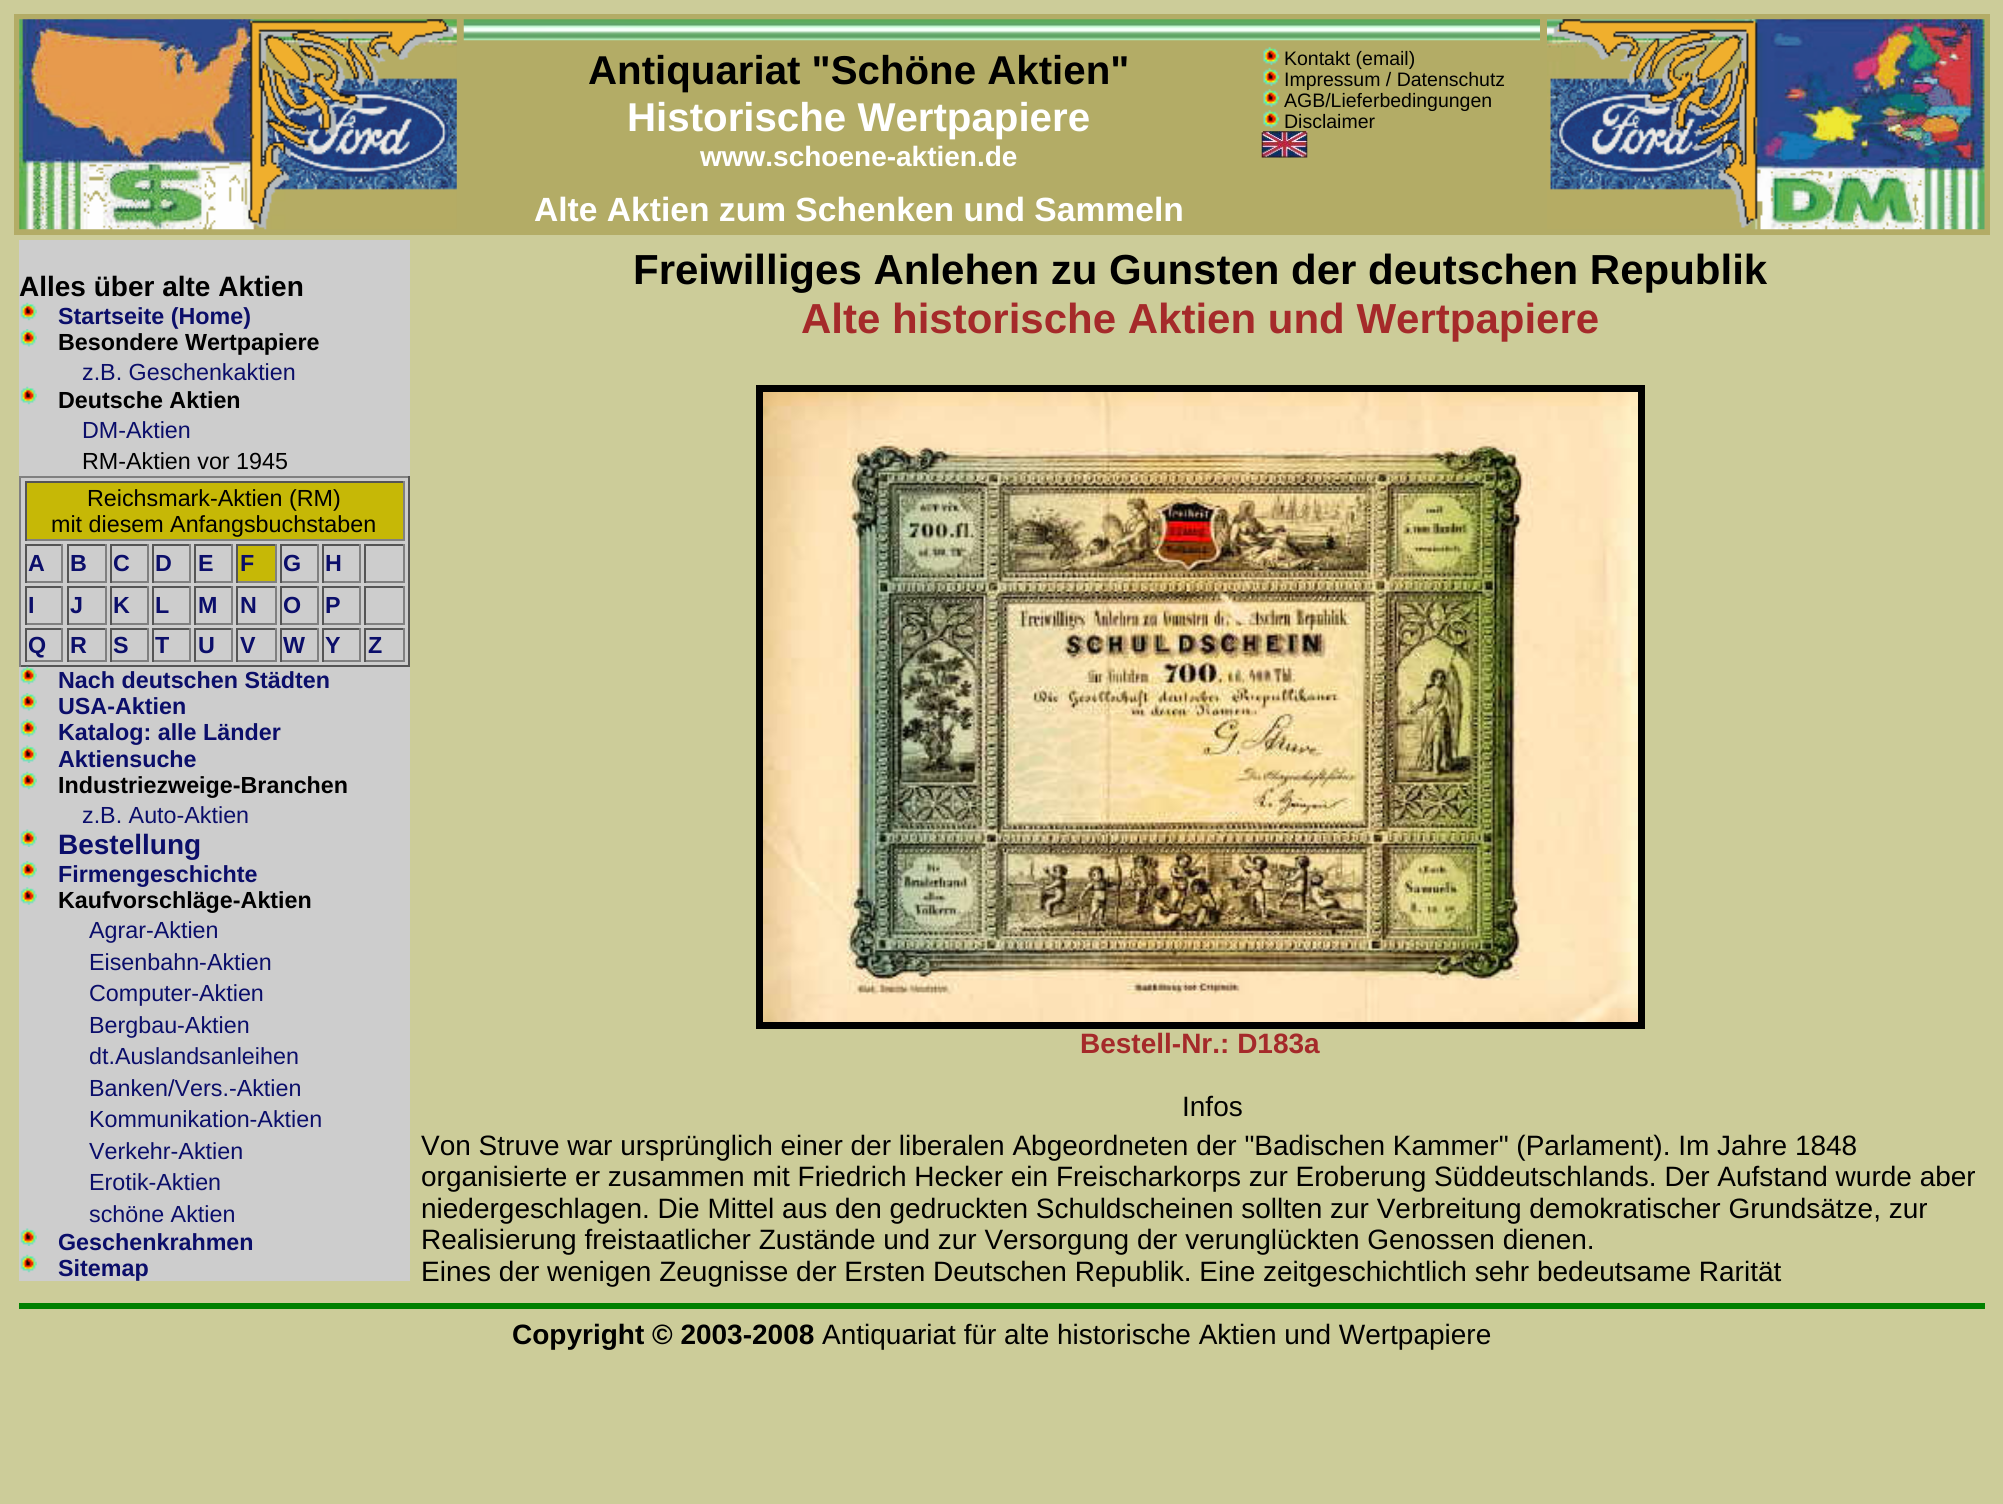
import math
import cairo

surface = cairo.ImageSurface(cairo.FORMAT_RGB24, 2003, 1504)
ctx = cairo.Context(surface)
options = cairo.FontOptions()
options.set_hint_metrics(cairo.HINT_METRICS_OFF)
options.set_hint_style(cairo.HINT_STYLE_NONE)
ctx.set_font_options(options)
ctx.set_miter_limit(4)


def set_color(code):
    ctx.set_source_rgb(*(v / 255 for v in bytes.fromhex(code[-6:])))


def draw_text(x, y, s, family, size, color, bold=False, italic=False):
    ctx.select_font_face(family, cairo.FONT_SLANT_ITALIC if italic else cairo.FONT_SLANT_NORMAL, cairo.FONT_WEIGHT_BOLD if bold else cairo.FONT_WEIGHT_NORMAL)
    ctx.set_font_size(size)
    set_color(color)
    ctx.move_to(x, y)
    ctx.show_text(s)


def fill_rect(x, y, w, h, color):
    set_color(color)
    ctx.rectangle(x, y, w, h)
    ctx.fill()


def draw_image(path, x, y, w, h):
    ctx.save()
    ctx.set_source_surface(cairo.ImageSurface.create_from_png(path), x, y)
    ctx.rectangle(x, y, w, h)
    ctx.fill()
    ctx.restore()


set_color("#cccc99")
ctx.paint()
fill_rect(14, 14, 1976, 221, "#b3ac66")
draw_image("assets/img1.png", 19, 19, 438, 211)
draw_image("assets/img2.png", 463, 19, 1077, 22)
draw_image("assets/img3.png", 1547, 19, 438, 211)
draw_text(588, 84, "Antiquariat \"Schöne Aktien\"", "Liberation Sans", 40.25, "#000000", bold=True)
draw_text(627, 131, "Historische Wertpapiere", "Liberation Sans", 40.25, "#ffffff", bold=True)
draw_text(700, 166, "www.schoene-aktien.de", "Liberation Sans", 28, "#ffffff", bold=True)
draw_image("assets/img4.png", 1263, 47, 17, 18)
draw_text(1284, 65, "Kontakt (email)", "Liberation Sans", 19.5, "#000000")
draw_image("assets/img5.png", 1263, 68, 17, 18)
draw_text(1284, 86, "Impressum / Datenschutz", "Liberation Sans", 19.5, "#000000")
draw_image("assets/img5.png", 1263, 89, 17, 18)
draw_text(1284, 107, "AGB/Lieferbedingungen", "Liberation Sans", 19.5, "#000000")
draw_image("assets/img6.png", 1263, 110, 17, 18)
draw_text(1284, 128, "Disclaimer", "Liberation Sans", 19.5, "#000000")
draw_image("assets/img7.png", 1261, 131, 47, 27)
draw_text(534, 221, "Alte Aktien zum Schenken und Sammeln", "Liberation Sans", 33.6, "#ffffff", bold=True)
fill_rect(19, 240, 391, 1041, "#cdcdcd")
draw_text(19, 296, "Alles über alte Aktien", "Liberation Sans", 28, "#000000", bold=True)
draw_image("assets/img8.png", 20, 302, 17, 19)
draw_text(58, 324, "Startseite (Home)", "Liberation Sans", 23.3, "#0b0e6a", bold=True)
draw_image("assets/img9.png", 20, 329, 17, 18)
draw_text(58, 350, "Besondere Wertpapiere", "Liberation Sans", 23.3, "#000000", bold=True)
draw_text(82, 380, "z.B. Geschenkaktien", "Liberation Sans", 23.3, "#0b0e6a")
draw_image("assets/img8.png", 20, 386, 17, 19)
draw_text(58, 408, "Deutsche Aktien", "Liberation Sans", 23.3, "#000000", bold=True)
draw_text(82, 438, "DM-Aktien", "Liberation Sans", 23.3, "#0b0e6a")
draw_text(82, 469, "RM-Aktien vor 1945", "Liberation Sans", 23.3, "#000000")
fill_rect(19, 476, 391, 2, "#808080")
fill_rect(408, 476, 2, 191, "#555555")
fill_rect(19, 665, 391, 2, "#555555")
fill_rect(19, 476, 2, 191, "#808080")
fill_rect(27, 483, 376, 56, "#c6b806")
fill_rect(25, 481, 379, 2, "#555555")
fill_rect(403, 481, 2, 60, "#808080")
fill_rect(25, 539, 379, 2, "#808080")
fill_rect(25, 481, 2, 60, "#555555")
draw_text(87, 506, "Reichsmark-Aktien (RM)", "Liberation Sans", 23.3, "#000000")
draw_text(51, 532, "mit diesem Anfangsbuchstaben", "Liberation Sans", 23.3, "#000000")
fill_rect(25, 544, 38, 2, "#555555")
fill_rect(61, 544, 2, 39, "#808080")
fill_rect(25, 581, 38, 2, "#808080")
fill_rect(25, 544, 2, 39, "#555555")
draw_text(28, 571, "A", "Liberation Sans", 23.3, "#0b0e6a", bold=True)
fill_rect(67, 544, 40, 2, "#555555")
fill_rect(105, 544, 2, 39, "#808080")
fill_rect(67, 581, 40, 2, "#808080")
fill_rect(67, 544, 2, 39, "#555555")
draw_text(70, 571, "B", "Liberation Sans", 23.3, "#0b0e6a", bold=True)
fill_rect(110, 544, 39, 2, "#555555")
fill_rect(147, 544, 2, 39, "#808080")
fill_rect(110, 581, 39, 2, "#808080")
fill_rect(110, 544, 2, 39, "#555555")
draw_text(113, 571, "C", "Liberation Sans", 23.3, "#0b0e6a", bold=True)
fill_rect(152, 544, 39, 2, "#555555")
fill_rect(189, 544, 2, 39, "#808080")
fill_rect(152, 581, 39, 2, "#808080")
fill_rect(152, 544, 2, 39, "#555555")
draw_text(155, 571, "D", "Liberation Sans", 23.3, "#0b0e6a", bold=True)
fill_rect(194, 544, 39, 2, "#555555")
fill_rect(231, 544, 2, 39, "#808080")
fill_rect(194, 581, 39, 2, "#808080")
fill_rect(194, 544, 2, 39, "#555555")
draw_text(198, 571, "E", "Liberation Sans", 23.3, "#0b0e6a", bold=True)
fill_rect(238, 546, 37, 35, "#c6b806")
fill_rect(236, 544, 41, 2, "#555555")
fill_rect(275, 544, 2, 39, "#808080")
fill_rect(236, 581, 41, 2, "#808080")
fill_rect(236, 544, 2, 39, "#555555")
draw_text(240, 571, "F", "Liberation Sans", 23.3, "#0b0e6a", bold=True)
fill_rect(280, 544, 39, 2, "#555555")
fill_rect(317, 544, 2, 39, "#808080")
fill_rect(280, 581, 39, 2, "#808080")
fill_rect(280, 544, 2, 39, "#555555")
draw_text(283, 571, "G", "Liberation Sans", 23.3, "#0b0e6a", bold=True)
fill_rect(322, 544, 39, 2, "#555555")
fill_rect(359, 544, 2, 39, "#808080")
fill_rect(322, 581, 39, 2, "#808080")
fill_rect(322, 544, 2, 39, "#555555")
draw_text(325, 571, "H", "Liberation Sans", 23.3, "#0b0e6a", bold=True)
fill_rect(364, 544, 40, 2, "#555555")
fill_rect(403, 544, 2, 39, "#808080")
fill_rect(364, 581, 40, 2, "#808080")
fill_rect(364, 544, 2, 39, "#555555")
fill_rect(25, 586, 38, 2, "#555555")
fill_rect(61, 586, 2, 39, "#808080")
fill_rect(25, 623, 38, 2, "#808080")
fill_rect(25, 586, 2, 39, "#555555")
draw_text(28, 613, "I", "Liberation Sans", 23.3, "#0b0e6a", bold=True)
fill_rect(67, 586, 40, 2, "#555555")
fill_rect(105, 586, 2, 39, "#808080")
fill_rect(67, 623, 40, 2, "#808080")
fill_rect(67, 586, 2, 39, "#555555")
draw_text(70, 613, "J", "Liberation Sans", 23.3, "#0b0e6a", bold=True)
fill_rect(110, 586, 39, 2, "#555555")
fill_rect(147, 586, 2, 39, "#808080")
fill_rect(110, 623, 39, 2, "#808080")
fill_rect(110, 586, 2, 39, "#555555")
draw_text(113, 613, "K", "Liberation Sans", 23.3, "#0b0e6a", bold=True)
fill_rect(152, 586, 39, 2, "#555555")
fill_rect(189, 586, 2, 39, "#808080")
fill_rect(152, 623, 39, 2, "#808080")
fill_rect(152, 586, 2, 39, "#555555")
draw_text(155, 613, "L", "Liberation Sans", 23.3, "#0b0e6a", bold=True)
fill_rect(194, 586, 39, 2, "#555555")
fill_rect(231, 586, 2, 39, "#808080")
fill_rect(194, 623, 39, 2, "#808080")
fill_rect(194, 586, 2, 39, "#555555")
draw_text(198, 613, "M", "Liberation Sans", 23.3, "#0b0e6a", bold=True)
fill_rect(236, 586, 41, 2, "#555555")
fill_rect(275, 586, 2, 39, "#808080")
fill_rect(236, 623, 41, 2, "#808080")
fill_rect(236, 586, 2, 39, "#555555")
draw_text(240, 613, "N", "Liberation Sans", 23.3, "#0b0e6a", bold=True)
fill_rect(280, 586, 39, 2, "#555555")
fill_rect(317, 586, 2, 39, "#808080")
fill_rect(280, 623, 39, 2, "#808080")
fill_rect(280, 586, 2, 39, "#555555")
draw_text(283, 613, "O", "Liberation Sans", 23.3, "#0b0e6a", bold=True)
fill_rect(322, 586, 39, 2, "#555555")
fill_rect(359, 586, 2, 39, "#808080")
fill_rect(322, 623, 39, 2, "#808080")
fill_rect(322, 586, 2, 39, "#555555")
draw_text(325, 613, "P", "Liberation Sans", 23.3, "#0b0e6a", bold=True)
fill_rect(364, 586, 40, 2, "#555555")
fill_rect(403, 586, 2, 39, "#808080")
fill_rect(364, 623, 40, 2, "#808080")
fill_rect(364, 586, 2, 39, "#555555")
fill_rect(25, 628, 38, 2, "#555555")
fill_rect(61, 628, 2, 34, "#808080")
fill_rect(25, 660, 38, 2, "#808080")
fill_rect(25, 628, 2, 34, "#555555")
draw_text(28, 653, "Q", "Liberation Sans", 23.3, "#0b0e6a", bold=True)
fill_rect(67, 628, 40, 2, "#555555")
fill_rect(105, 628, 2, 34, "#808080")
fill_rect(67, 660, 40, 2, "#808080")
fill_rect(67, 628, 2, 34, "#555555")
draw_text(70, 653, "R", "Liberation Sans", 23.3, "#0b0e6a", bold=True)
fill_rect(110, 628, 39, 2, "#555555")
fill_rect(147, 628, 2, 34, "#808080")
fill_rect(110, 660, 39, 2, "#808080")
fill_rect(110, 628, 2, 34, "#555555")
draw_text(113, 653, "S", "Liberation Sans", 23.3, "#0b0e6a", bold=True)
fill_rect(152, 628, 39, 2, "#555555")
fill_rect(189, 628, 2, 34, "#808080")
fill_rect(152, 660, 39, 2, "#808080")
fill_rect(152, 628, 2, 34, "#555555")
draw_text(155, 653, "T", "Liberation Sans", 23.3, "#0b0e6a", bold=True)
fill_rect(194, 628, 39, 2, "#555555")
fill_rect(231, 628, 2, 34, "#808080")
fill_rect(194, 660, 39, 2, "#808080")
fill_rect(194, 628, 2, 34, "#555555")
draw_text(198, 653, "U", "Liberation Sans", 23.3, "#0b0e6a", bold=True)
fill_rect(236, 628, 41, 2, "#555555")
fill_rect(275, 628, 2, 34, "#808080")
fill_rect(236, 660, 41, 2, "#808080")
fill_rect(236, 628, 2, 34, "#555555")
draw_text(240, 653, "V", "Liberation Sans", 23.3, "#0b0e6a", bold=True)
fill_rect(280, 628, 39, 2, "#555555")
fill_rect(317, 628, 2, 34, "#808080")
fill_rect(280, 660, 39, 2, "#808080")
fill_rect(280, 628, 2, 34, "#555555")
draw_text(283, 653, "W", "Liberation Sans", 23.3, "#0b0e6a", bold=True)
fill_rect(322, 628, 39, 2, "#555555")
fill_rect(359, 628, 2, 34, "#808080")
fill_rect(322, 660, 39, 2, "#808080")
fill_rect(322, 628, 2, 34, "#555555")
draw_text(325, 653, "Y", "Liberation Sans", 23.3, "#0b0e6a", bold=True)
fill_rect(364, 628, 40, 2, "#555555")
fill_rect(403, 628, 2, 34, "#808080")
fill_rect(364, 660, 40, 2, "#808080")
fill_rect(364, 628, 2, 34, "#555555")
draw_text(368, 653, "Z", "Liberation Sans", 23.3, "#0b0e6a", bold=True)
draw_image("assets/img10.png", 20, 666, 17, 19)
draw_text(58, 688, "Nach deutschen Städten", "Liberation Sans", 23.3, "#0b0e6a", bold=True)
draw_image("assets/img9.png", 20, 693, 17, 18)
draw_text(58, 714, "USA-Aktien", "Liberation Sans", 23.3, "#0b0e6a", bold=True)
draw_image("assets/img11.png", 20, 719, 17, 18)
draw_text(58, 740, "Katalog: alle Länder", "Liberation Sans", 23.3, "#0b0e6a", bold=True)
draw_image("assets/img12.png", 20, 745, 17, 18)
draw_text(58, 767, "Aktiensuche", "Liberation Sans", 23.3, "#0b0e6a", bold=True)
draw_image("assets/img8.png", 20, 771, 17, 19)
draw_text(58, 793, "Industriezweige-Branchen", "Liberation Sans", 23.3, "#000000", bold=True)
draw_text(82, 823, "z.B. Auto-Aktien", "Liberation Sans", 23.3, "#0b0e6a")
draw_image("assets/img12.png", 20, 829, 17, 18)
draw_text(58, 854, "Bestellung", "Liberation Sans", 28, "#0b0e6a", bold=True)
draw_image("assets/img9.png", 20, 861, 17, 18)
draw_text(58, 882, "Firmengeschichte", "Liberation Sans", 23.3, "#0b0e6a", bold=True)
draw_image("assets/img11.png", 20, 887, 17, 18)
draw_text(58, 908, "Kaufvorschläge-Aktien", "Liberation Sans", 23.3, "#000000", bold=True)
draw_text(89, 938, "Agrar-Aktien", "Liberation Sans", 23.3, "#0b0e6a")
draw_text(89, 970, "Eisenbahn-Aktien", "Liberation Sans", 23.3, "#0b0e6a")
draw_text(89, 1001, "Computer-Aktien", "Liberation Sans", 23.3, "#0b0e6a")
draw_text(89, 1033, "Bergbau-Aktien", "Liberation Sans", 23.3, "#0b0e6a")
draw_text(89, 1064, "dt.Auslandsanleihen", "Liberation Sans", 23.3, "#0b0e6a")
draw_text(89, 1096, "Banken/Vers.-Aktien", "Liberation Sans", 23.3, "#0b0e6a")
draw_text(89, 1127, "Kommunikation-Aktien", "Liberation Sans", 23.3, "#0b0e6a")
draw_text(89, 1159, "Verkehr-Aktien", "Liberation Sans", 23.3, "#0b0e6a")
draw_text(89, 1190, "Erotik-Aktien", "Liberation Sans", 23.3, "#0b0e6a")
draw_text(89, 1222, "schöne Aktien", "Liberation Sans", 23.3, "#0b0e6a")
draw_image("assets/img12.png", 20, 1228, 17, 18)
draw_text(58, 1250, "Geschenkrahmen", "Liberation Sans", 23.3, "#0b0e6a", bold=True)
draw_image("assets/img8.png", 20, 1254, 17, 19)
draw_text(58, 1276, "Sitemap", "Liberation Sans", 23.3, "#0b0e6a", bold=True)
draw_text(633, 284, "Freiwilliges Anlehen zu Gunsten der deutschen Republik", "Liberation Sans", 42, "#000000", bold=True)
draw_text(801, 333, "Alte historische Aktien und Wertpapiere", "Liberation Sans", 42, "#a52a2a", bold=True)
ctx.rectangle(759.5, 388.5, 882, 637)
set_color("#000000")
ctx.set_line_width(7)
ctx.stroke()
draw_image("assets/img13.png", 763, 392, 875, 630)
draw_text(1080, 1053, "Bestell-Nr.: D183a", "Liberation Sans", 28, "#a52a2a", bold=True)
draw_text(1182, 1116, "Infos", "Liberation Sans", 28, "#000000")
draw_text(421, 1155, "Von Struve war ursprünglich einer der liberalen Abgeordneten der \"Badischen Kammer\" (Parlament). Im Jahre 1848", "Liberation Sans", 28, "#000000")
draw_text(421, 1186, "organisierte er zusammen mit Friedrich Hecker ein Freischarkorps zur Eroberung Süddeutschlands. Der Aufstand wurde aber", "Liberation Sans", 28, "#000000")
draw_text(421, 1218, "niedergeschlagen. Die Mittel aus den gedruckten Schuldscheinen sollten zur Verbreitung demokratischer Grundsätze, zur", "Liberation Sans", 28, "#000000")
draw_text(421, 1249, "Realisierung freistaatlicher Zustände und zur Versorgung der verunglückten Genossen dienen.", "Liberation Sans", 28, "#000000")
draw_text(421, 1281, "Eines der wenigen Zeugnisse der Ersten Deutschen Republik. Eine zeitgeschichtlich sehr bedeutsame Rarität", "Liberation Sans", 28, "#000000")
fill_rect(19, 1303, 1966, 6, "#008000")
draw_text(512, 1344, "Copyright © 2003-2008", "Liberation Sans", 28, "#000000", bold=True)
draw_text(822, 1344, "Antiquariat für alte historische Aktien und Wertpapiere", "Liberation Sans", 28, "#000000")
surface.write_to_png("output.png")
